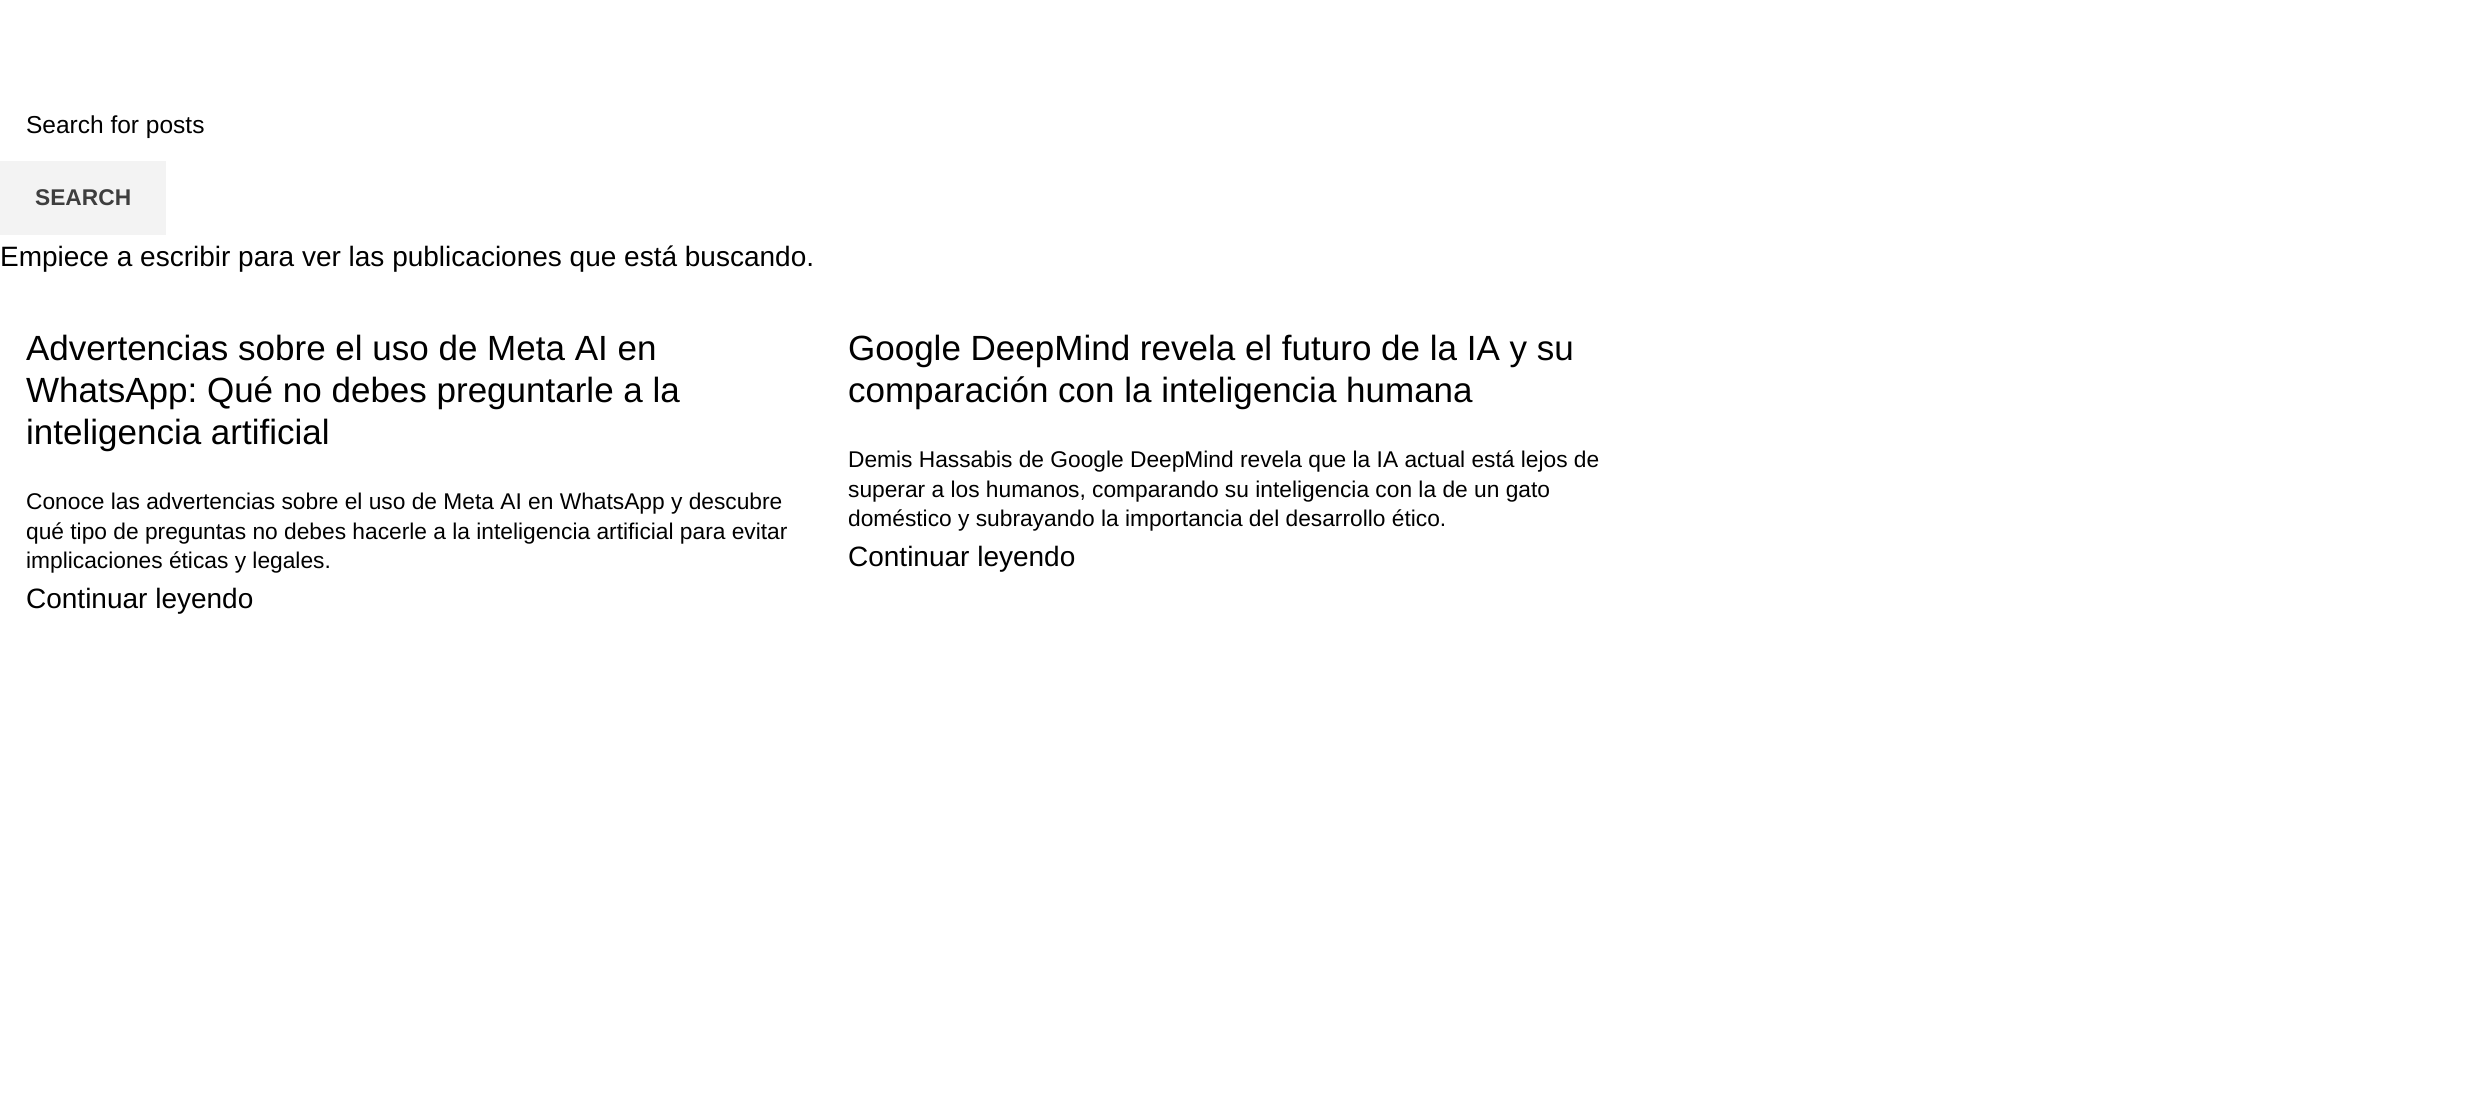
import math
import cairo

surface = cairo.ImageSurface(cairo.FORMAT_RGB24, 2480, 1120)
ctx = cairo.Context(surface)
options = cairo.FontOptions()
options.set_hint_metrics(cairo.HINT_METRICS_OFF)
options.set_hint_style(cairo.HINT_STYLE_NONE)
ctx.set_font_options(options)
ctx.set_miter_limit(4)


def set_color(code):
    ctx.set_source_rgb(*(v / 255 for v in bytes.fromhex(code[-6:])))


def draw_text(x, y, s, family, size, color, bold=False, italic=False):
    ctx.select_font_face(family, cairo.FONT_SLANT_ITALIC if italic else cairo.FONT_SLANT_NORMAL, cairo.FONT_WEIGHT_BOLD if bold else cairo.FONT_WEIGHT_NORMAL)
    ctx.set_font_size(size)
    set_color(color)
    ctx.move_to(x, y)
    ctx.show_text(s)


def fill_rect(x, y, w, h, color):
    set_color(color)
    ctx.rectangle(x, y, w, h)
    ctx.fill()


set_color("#ffffff")
ctx.paint()
draw_text(26, 133, "Search for posts", "Liberation Sans", 24.5, "#000000")
fill_rect(0, 161, 166, 74, "#f3f3f3")
draw_text(35, 205, "SEARCH", "Liberation Sans", 22.75, "#3e3e3e", bold=True)
draw_text(0, 266, "Empiece a escribir para ver las publicaciones que está buscando.", "Liberation Sans", 28, "#000000")
draw_text(26, 360, "Advertencias sobre el uso de Meta AI en", "Liberation Sans", 35, "#000000")
draw_text(26, 402, "WhatsApp: Qué no debes preguntarle a la", "Liberation Sans", 35, "#000000")
draw_text(26, 444, "inteligencia artificial", "Liberation Sans", 35, "#000000")
draw_text(26, 509, "Conoce las advertencias sobre el uso de Meta AI en WhatsApp y descubre", "Liberation Sans", 22.75, "#000000")
draw_text(26, 539, "qué tipo de preguntas no debes hacerle a la inteligencia artificial para evitar", "Liberation Sans", 22.75, "#000000")
draw_text(26, 568, "implicaciones éticas y legales.", "Liberation Sans", 22.75, "#000000")
draw_text(26, 608, "Continuar leyendo", "Liberation Sans", 28, "#000000")
draw_text(848, 360, "Google DeepMind revela el futuro de la IA y su", "Liberation Sans", 35, "#000000")
draw_text(848, 402, "comparación con la inteligencia humana", "Liberation Sans", 35, "#000000")
draw_text(848, 467, "Demis Hassabis de Google DeepMind revela que la IA actual está lejos de", "Liberation Sans", 22.75, "#000000")
draw_text(848, 497, "superar a los humanos, comparando su inteligencia con la de un gato", "Liberation Sans", 22.75, "#000000")
draw_text(848, 526, "doméstico y subrayando la importancia del desarrollo ético.", "Liberation Sans", 22.75, "#000000")
draw_text(848, 566, "Continuar leyendo", "Liberation Sans", 28, "#000000")
surface.write_to_png("output.png")
